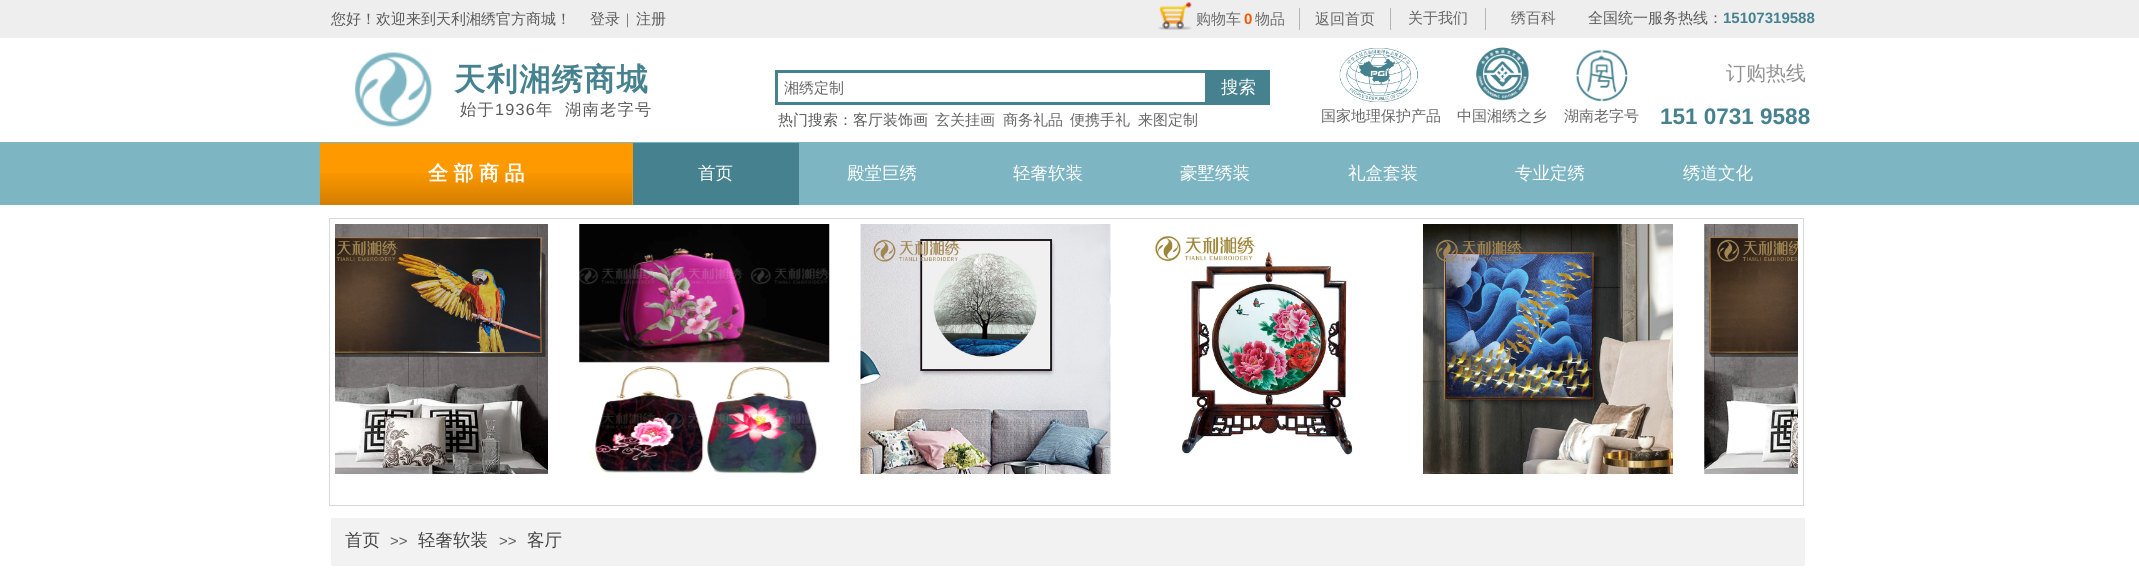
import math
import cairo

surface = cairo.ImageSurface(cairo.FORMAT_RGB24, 2139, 571)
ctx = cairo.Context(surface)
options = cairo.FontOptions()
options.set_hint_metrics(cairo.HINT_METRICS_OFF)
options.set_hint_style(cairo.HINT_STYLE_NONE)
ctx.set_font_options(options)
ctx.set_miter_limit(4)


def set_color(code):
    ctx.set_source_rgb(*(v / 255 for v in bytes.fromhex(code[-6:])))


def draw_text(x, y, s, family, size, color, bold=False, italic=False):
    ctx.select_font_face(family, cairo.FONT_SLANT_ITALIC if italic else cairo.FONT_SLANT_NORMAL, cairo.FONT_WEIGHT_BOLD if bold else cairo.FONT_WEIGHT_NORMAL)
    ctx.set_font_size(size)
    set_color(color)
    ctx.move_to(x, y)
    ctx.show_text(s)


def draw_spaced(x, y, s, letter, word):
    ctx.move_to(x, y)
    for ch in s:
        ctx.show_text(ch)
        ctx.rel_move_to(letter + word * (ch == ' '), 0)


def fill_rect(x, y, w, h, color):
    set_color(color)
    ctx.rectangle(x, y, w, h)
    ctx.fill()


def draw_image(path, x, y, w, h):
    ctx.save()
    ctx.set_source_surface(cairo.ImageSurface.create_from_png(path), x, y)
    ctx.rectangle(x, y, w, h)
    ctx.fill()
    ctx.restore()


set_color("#ffffff")
ctx.paint()
fill_rect(0, 0, 2139, 38, "#eeeeee")
fill_rect(1299, 8, 1, 22, "#b4b4b4")
fill_rect(1390, 8, 1, 22, "#b4b4b4")
fill_rect(1485, 8, 1, 22, "#b4b4b4")
draw_text(331, 24, "您好！欢迎来到天利湘绣官方商城！", "WenQuanYi Zen Hei Medium", 15, "#5a5a5a")
draw_text(590, 24, "登录", "WenQuanYi Zen Hei Medium", 15, "#5a5a5a")
draw_text(626, 24, "|", "Liberation Serif", 15, "#5a5a5a")
draw_text(636, 24, "注册", "WenQuanYi Zen Hei Medium", 15, "#5a5a5a")
draw_image("assets/img1.png", 1158, 2, 34, 28)
draw_text(1196, 24, "购物车", "WenQuanYi Zen Hei Medium", 15, "#6d6d6d")
draw_text(1244, 24, "0", "Liberation Sans", 15, "#f75700", bold=True)
draw_text(1255, 24, "物品", "WenQuanYi Zen Hei Medium", 15, "#6d6d6d")
draw_text(1315, 24, "返回首页", "WenQuanYi Zen Hei Medium", 15, "#666666")
draw_text(1408, 23, "关于我们", "WenQuanYi Zen Hei Medium", 15, "#666666")
draw_text(1511, 23, "绣百科", "WenQuanYi Zen Hei Medium", 15, "#666666")
draw_text(1588, 23, "全国统一服务热线：", "WenQuanYi Zen Hei Medium", 15, "#5a5a5a")
draw_text(1723, 23, "15107319588", "Liberation Sans", 15, "#45818e", bold=True)
draw_image("assets/img2.png", 354, 52, 78, 75)
ctx.select_font_face("WenQuanYi Zen Hei", cairo.FONT_SLANT_NORMAL, cairo.FONT_WEIGHT_BOLD)
ctx.set_font_size(31.25)
draw_spaced(454, 90, "天利湘绣商城", 1.25, 0)
draw_image("assets/img3.png", 1339, 48, 79, 54)
draw_image("assets/img4.png", 1476, 47, 53, 54)
draw_image("assets/img5.png", 1575, 49, 53, 53)
draw_text(1726, 80, "订购热线", "WenQuanYi Zen Hei Medium", 20, "#929292")
ctx.rectangle(776.5, 71.5, 430, 32)
set_color("#45818e")
ctx.set_line_width(3)
ctx.stroke()
draw_text(784, 93, "湘绣定制", "WenQuanYi Zen Hei Medium", 15, "#666666")
fill_rect(1208, 70, 62, 35, "#45818e")
draw_text(1221, 93, "搜索", "WenQuanYi Zen Hei Medium", 17.5, "#ffffff")
ctx.set_font_size(16.25)
set_color("#5a5a5a")
draw_spaced(460, 115, "始于", 1.25, 0)
ctx.select_font_face("Liberation Sans")
draw_spaced(495, 115, "1936", 1.25, 0)
ctx.select_font_face("WenQuanYi Zen Hei Medium")
draw_spaced(536, 115, "年", 1.25, 0)
draw_spaced(565, 115, "湖南老字号", 1.25, 0)
draw_text(778, 125, "热门搜索：客厅装饰画", "WenQuanYi Zen Hei Medium", 15, "#5a5a5a")
draw_text(935, 125, "玄关挂画", "WenQuanYi Zen Hei Medium", 15, "#666666")
draw_text(1003, 125, "商务礼品", "WenQuanYi Zen Hei Medium", 15, "#666666")
draw_text(1070, 125, "便携手礼", "WenQuanYi Zen Hei Medium", 15, "#666666")
draw_text(1138, 125, "来图定制", "WenQuanYi Zen Hei Medium", 15, "#666666")
draw_text(1321, 121, "国家地理保护产品", "WenQuanYi Zen Hei Medium", 15, "#666666")
draw_text(1457, 121, "中国湘绣之乡", "WenQuanYi Zen Hei Medium", 15, "#666666")
draw_text(1564, 121, "湖南老字号", "WenQuanYi Zen Hei Medium", 15, "#666666")
draw_text(1660, 124, "151 0731 9588", "Liberation Sans", 22.5, "#45818e", bold=True)
fill_rect(0, 142, 2139, 63, "#7db5c2")
fill_rect(320, 143, 313, 62, "#ff9900")
draw_image("assets/img6.png", 320, 173, 313, 32)
ctx.select_font_face("WenQuanYi Zen Hei", cairo.FONT_SLANT_NORMAL, cairo.FONT_WEIGHT_BOLD)
ctx.set_font_size(20)
set_color("#ffffff")
draw_spaced(428, 180, "全 部 商 品", 0, -0.5)
fill_rect(633, 143, 166, 62, "#45818e")
draw_text(698, 179, "首页", "WenQuanYi Zen Hei Medium", 17.5, "#ffffff")
draw_text(847, 179, "殿堂巨绣", "WenQuanYi Zen Hei Medium", 17.5, "#ffffff")
draw_text(1013, 179, "轻奢软装", "WenQuanYi Zen Hei Medium", 17.5, "#ffffff")
draw_text(1180, 179, "豪墅绣装", "WenQuanYi Zen Hei Medium", 17.5, "#ffffff")
draw_text(1348, 179, "礼盒套装", "WenQuanYi Zen Hei Medium", 17.5, "#ffffff")
draw_text(1515, 179, "专业定绣", "WenQuanYi Zen Hei Medium", 17.5, "#ffffff")
draw_text(1683, 179, "绣道文化", "WenQuanYi Zen Hei Medium", 17.5, "#ffffff")
ctx.rectangle(329.5, 218.5, 1474, 287)
set_color("#d9d9d9")
ctx.set_line_width(1)
ctx.stroke()
draw_image("assets/img7.png", 335, 224, 213, 250)
draw_image("assets/img8.png", 579, 224, 251, 250)
draw_image("assets/img9.png", 860, 224, 251, 250)
draw_image("assets/img10.png", 1155, 236, 198, 219)
draw_image("assets/img11.png", 1423, 224, 250, 250)
draw_image("assets/img12.png", 1704, 224, 94, 250)
fill_rect(331, 518, 1474, 48, "#f2f2f2")
draw_text(345, 546, "首页", "WenQuanYi Zen Hei Medium", 17.5, "#434343")
draw_text(390, 546, ">>", "Liberation Sans", 15, "#5a5a5a")
draw_text(418, 546, "轻奢软装", "WenQuanYi Zen Hei Medium", 17.5, "#434343")
draw_text(499, 546, ">>", "Liberation Sans", 15, "#5a5a5a")
draw_text(527, 546, "客厅", "WenQuanYi Zen Hei Medium", 17.5, "#434343")
surface.write_to_png("output.png")
